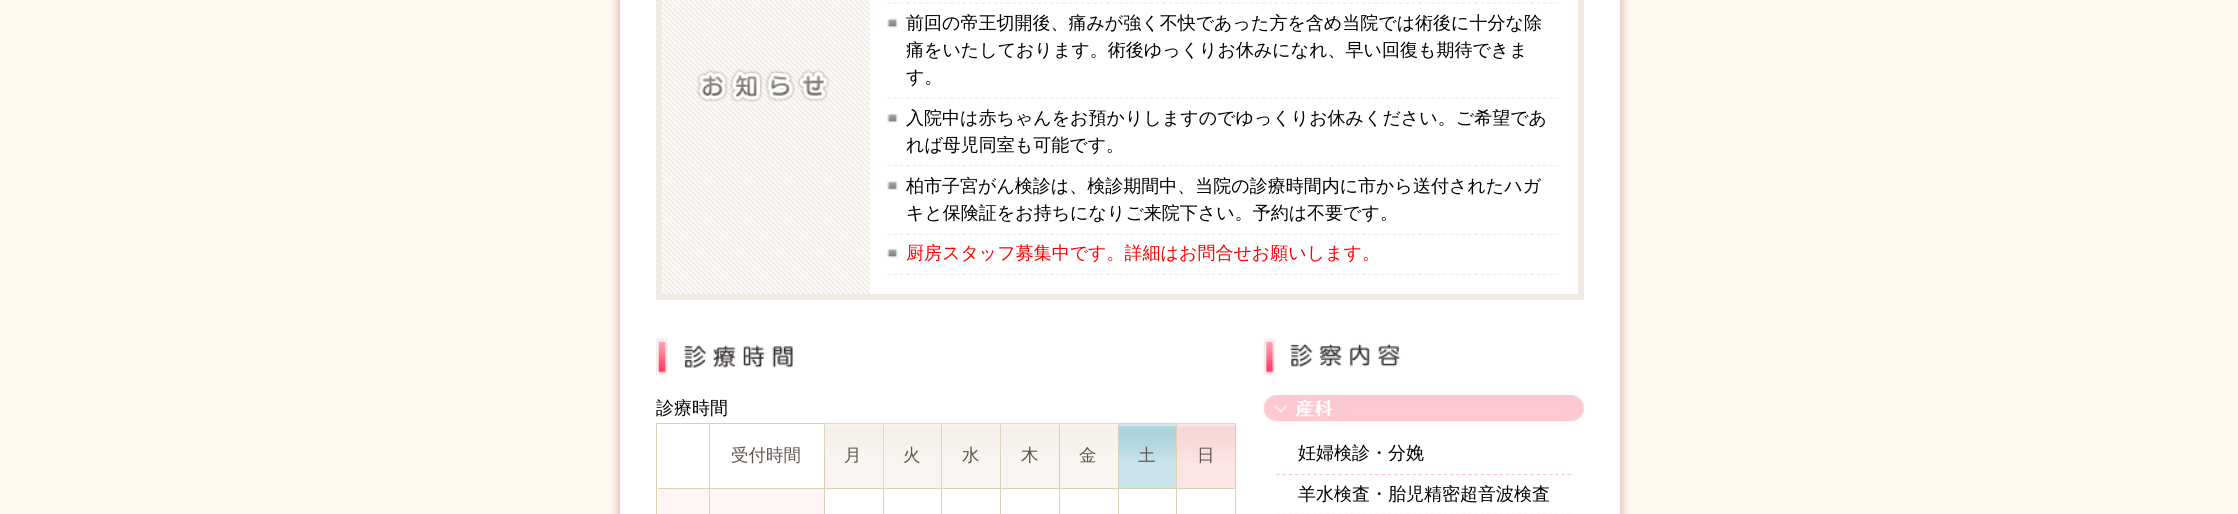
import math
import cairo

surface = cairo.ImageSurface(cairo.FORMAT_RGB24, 2238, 514)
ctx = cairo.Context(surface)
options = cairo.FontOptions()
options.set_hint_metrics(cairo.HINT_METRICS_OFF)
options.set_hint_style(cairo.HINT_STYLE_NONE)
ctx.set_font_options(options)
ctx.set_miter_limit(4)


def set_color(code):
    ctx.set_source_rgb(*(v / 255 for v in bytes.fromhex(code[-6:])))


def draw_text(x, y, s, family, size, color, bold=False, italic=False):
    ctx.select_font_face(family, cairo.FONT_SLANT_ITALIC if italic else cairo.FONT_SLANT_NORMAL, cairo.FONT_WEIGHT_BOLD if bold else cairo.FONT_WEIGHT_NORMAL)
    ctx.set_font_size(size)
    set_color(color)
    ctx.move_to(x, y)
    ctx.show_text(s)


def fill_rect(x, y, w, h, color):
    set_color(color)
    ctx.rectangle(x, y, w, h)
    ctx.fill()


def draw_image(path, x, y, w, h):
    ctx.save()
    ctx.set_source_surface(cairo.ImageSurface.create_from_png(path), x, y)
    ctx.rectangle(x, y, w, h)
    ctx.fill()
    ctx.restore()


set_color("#fff8ef")
ctx.paint()
draw_image("assets/img1.png", 612, 0, 1016, 514)
draw_image("assets/img2.png", 662, 0, 208, 294)
ctx.rectangle(659, -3, 922, 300)
set_color("#f0ebe2")
ctx.set_line_width(6)
ctx.stroke()
ctx.new_path()
ctx.move_to(887.5, 3)
ctx.line_to(1559, 3)
ctx.set_line_width(1.2)
ctx.set_dash([3.75, 2.49])
ctx.stroke()
draw_image("assets/img3.png", 887, 18, 11, 10)
ctx.new_path()
ctx.move_to(887.5, 98)
ctx.line_to(1559, 98)
ctx.stroke()
draw_text(906, 29, "前回の帝王切開後、痛みが強く不快であった方を含め当院では術後に十分な除", "WenQuanYi Zen Hei Medium", 18, "#000000")
draw_text(906, 56, "痛をいたしております。術後ゆっくりお休みになれ、早い回復も期待できま", "WenQuanYi Zen Hei Medium", 18, "#000000")
draw_text(906, 83, "す。", "WenQuanYi Zen Hei Medium", 18, "#000000")
draw_image("assets/img3.png", 887, 113, 11, 10)
ctx.new_path()
ctx.move_to(887.5, 165.5)
ctx.line_to(1559, 165.5)
set_color("#f0ebe2")
ctx.stroke()
draw_text(906, 124, "入院中は赤ちゃんをお預かりしますのでゆっくりお休みください。ご希望であ", "WenQuanYi Zen Hei Medium", 18, "#000000")
draw_text(906, 151, "れば母児同室も可能です。", "WenQuanYi Zen Hei Medium", 18, "#000000")
draw_image("assets/img4.png", 887, 181, 11, 9)
ctx.new_path()
ctx.move_to(887.5, 234.5)
ctx.line_to(1559, 234.5)
set_color("#f0ebe2")
ctx.stroke()
draw_text(906, 192, "柏市子宮がん検診は、検診期間中、当院の診療時間内に市から送付されたハガ", "WenQuanYi Zen Hei Medium", 18, "#000000")
draw_text(906, 219, "キと保険証をお持ちになりご来院下さい。予約は不要です。", "WenQuanYi Zen Hei Medium", 18, "#000000")
draw_image("assets/img3.png", 887, 248, 11, 10)
ctx.new_path()
ctx.move_to(887.5, 274.5)
ctx.line_to(1559, 274.5)
set_color("#f0ebe2")
ctx.stroke()
draw_text(906, 259, "厨房スタッフ募集中です。詳細はお問合せお願いします。", "WenQuanYi Zen Hei Medium", 18, "#ff0000")
draw_image("assets/img5.png", 656, 338, 137, 37)
draw_text(656, 414, "診療時間", "WenQuanYi Zen Hei Medium", 18, "#000000")
fill_rect(656, 423, 580, 1, "#ded0b6")
fill_rect(656, 423, 1, 91, "#ded0b6")
fill_rect(709, 424, 1, 90, "#ded0b6")
fill_rect(658, 488, 52, 1, "#ded0b6")
fill_rect(824, 424, 1, 90, "#ded0b6")
fill_rect(710, 488, 115, 1, "#ded0b6")
draw_text(731, 461, "受付時間", "WenQuanYi Zen Hei Medium", 17.5, "#5f544f")
draw_image("assets/img6.png", 825, 423, 59, 65)
fill_rect(883, 424, 1, 90, "#ded0b6")
fill_rect(825, 488, 59, 1, "#ded0b6")
draw_text(844, 461, "月", "WenQuanYi Zen Hei Medium", 17.5, "#5f544f")
draw_image("assets/img7.png", 883, 423, 60, 66)
fill_rect(941, 424, 1, 90, "#ded0b6")
fill_rect(884, 488, 59, 1, "#ded0b6")
draw_text(903, 461, "火", "WenQuanYi Zen Hei Medium", 17.5, "#5f544f")
draw_image("assets/img8.png", 942, 423, 60, 66)
fill_rect(1000, 424, 1, 90, "#ded0b6")
fill_rect(943, 488, 58, 1, "#ded0b6")
draw_text(962, 461, "水", "WenQuanYi Zen Hei Medium", 17.5, "#5f544f")
draw_image("assets/img9.png", 1001, 423, 59, 65)
fill_rect(1059, 424, 1, 90, "#ded0b6")
fill_rect(1001, 488, 59, 1, "#ded0b6")
draw_text(1021, 461, "木", "WenQuanYi Zen Hei Medium", 17.5, "#5f544f")
draw_image("assets/img6.png", 1060, 423, 59, 65)
fill_rect(1118, 424, 1, 90, "#ded0b6")
fill_rect(1060, 488, 59, 1, "#ded0b6")
draw_text(1079, 461, "金", "WenQuanYi Zen Hei Medium", 17.5, "#5f544f")
draw_image("assets/img10.png", 1118, 423, 60, 66)
fill_rect(1176, 424, 1, 90, "#ded0b6")
fill_rect(1119, 488, 59, 1, "#ded0b6")
draw_text(1138, 461, "土", "WenQuanYi Zen Hei Medium", 17.5, "#5f544f")
draw_image("assets/img11.png", 1177, 423, 60, 66)
fill_rect(1235, 424, 1, 90, "#ded0b6")
fill_rect(1178, 488, 58, 1, "#ded0b6")
draw_text(1197, 461, "日", "WenQuanYi Zen Hei Medium", 17.5, "#5f544f")
fill_rect(658, 489, 51, 25, "#fff5f5")
fill_rect(710, 489, 114, 25, "#fff5f5")
draw_image("assets/img12.png", 1263, 338, 138, 37)
draw_image("assets/img13.png", 1263, 395, 321, 27)
ctx.new_path()
ctx.move_to(1276, 474.5)
ctx.line_to(1571, 474.5)
set_color("#fdc8d1")
ctx.set_dash([3.75, 2.45])
ctx.stroke()
draw_text(1298, 459, "妊婦検診・分娩", "WenQuanYi Zen Hei Medium", 18, "#000000")
ctx.new_path()
ctx.move_to(1276, 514.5)
ctx.line_to(1571, 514.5)
set_color("#fdc8d1")
ctx.stroke()
draw_text(1298, 500, "羊水検査・胎児精密超音波検査", "WenQuanYi Zen Hei Medium", 18, "#000000")
surface.write_to_png("output.png")
